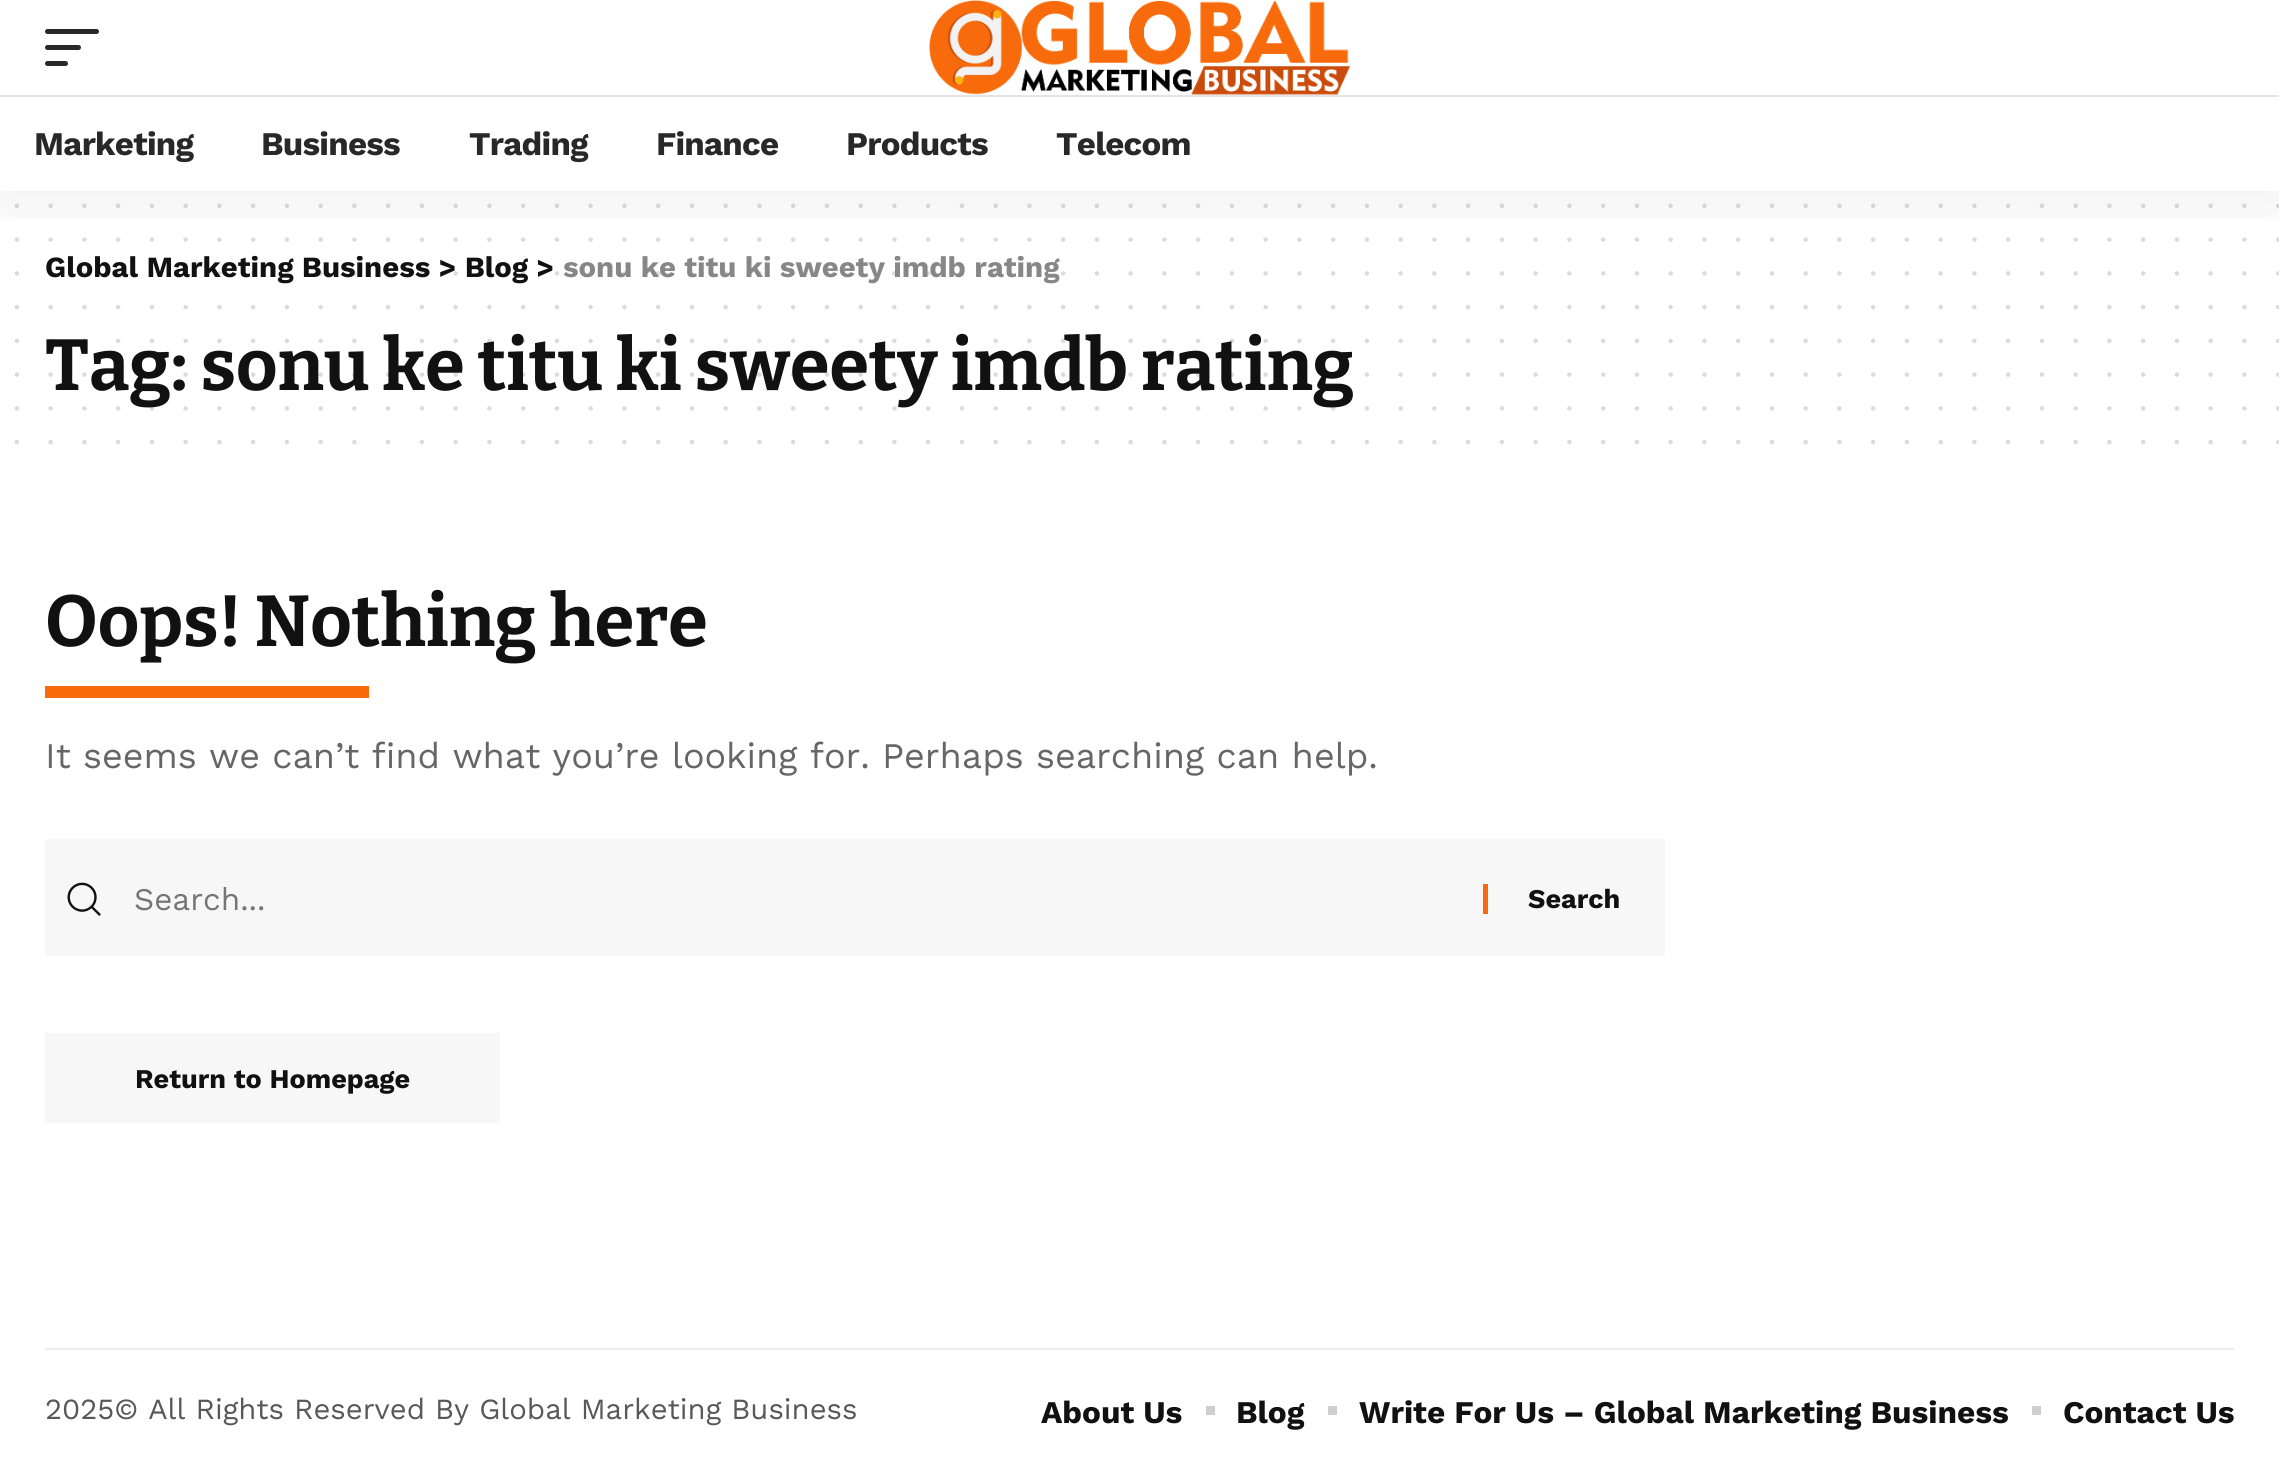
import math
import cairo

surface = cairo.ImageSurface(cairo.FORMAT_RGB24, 2279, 1474)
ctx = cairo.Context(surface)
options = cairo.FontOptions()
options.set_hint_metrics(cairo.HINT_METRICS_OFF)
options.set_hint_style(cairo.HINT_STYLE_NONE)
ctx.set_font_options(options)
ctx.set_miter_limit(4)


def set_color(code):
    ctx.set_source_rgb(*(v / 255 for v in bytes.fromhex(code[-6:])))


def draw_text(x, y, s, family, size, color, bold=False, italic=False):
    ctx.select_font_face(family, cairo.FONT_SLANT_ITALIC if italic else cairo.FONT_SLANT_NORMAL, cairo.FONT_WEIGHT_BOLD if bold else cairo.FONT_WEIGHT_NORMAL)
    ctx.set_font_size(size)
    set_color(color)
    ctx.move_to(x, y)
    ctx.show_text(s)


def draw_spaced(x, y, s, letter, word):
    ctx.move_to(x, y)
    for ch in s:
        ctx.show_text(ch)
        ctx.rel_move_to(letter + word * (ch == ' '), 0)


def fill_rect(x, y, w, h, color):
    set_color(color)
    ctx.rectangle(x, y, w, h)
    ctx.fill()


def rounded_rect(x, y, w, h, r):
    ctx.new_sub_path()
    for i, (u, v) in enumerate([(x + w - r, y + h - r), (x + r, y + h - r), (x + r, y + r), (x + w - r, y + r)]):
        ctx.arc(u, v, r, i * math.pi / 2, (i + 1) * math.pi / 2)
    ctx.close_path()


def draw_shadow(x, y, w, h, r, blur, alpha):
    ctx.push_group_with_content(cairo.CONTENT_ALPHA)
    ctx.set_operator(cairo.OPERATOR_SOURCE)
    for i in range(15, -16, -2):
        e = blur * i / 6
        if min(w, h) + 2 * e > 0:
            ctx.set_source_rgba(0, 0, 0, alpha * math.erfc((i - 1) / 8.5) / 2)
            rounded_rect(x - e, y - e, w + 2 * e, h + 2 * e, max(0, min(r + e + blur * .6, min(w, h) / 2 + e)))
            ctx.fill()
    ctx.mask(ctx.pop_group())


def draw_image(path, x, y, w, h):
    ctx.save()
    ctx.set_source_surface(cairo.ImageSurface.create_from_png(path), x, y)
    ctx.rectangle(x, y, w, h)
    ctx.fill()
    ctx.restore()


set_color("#ffffff")
ctx.paint()
ctx.new_path()
ctx.move_to(16.9, 205.9)
ctx.line_to(2278.6, 205.9)
set_color("#dbdbdb")
ctx.set_line_width(4.5)
ctx.set_line_cap(cairo.LINE_CAP_ROUND)
ctx.set_dash([0, 33.75])
ctx.stroke()
ctx.new_path()
ctx.move_to(16.9, 239.6)
ctx.line_to(2278.6, 239.6)
ctx.stroke()
draw_text(45, 277, "Global Marketing Business > Blog >", "Work Sans", 29.25, "#111111", bold=True)
ctx.new_path()
ctx.move_to(16.9, 273.4)
ctx.line_to(2278.6, 273.4)
ctx.set_source_rgba(0.067, 0.067, 0.067, 0.15)
ctx.stroke()
ctx.save()
ctx.rectangle(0, 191, 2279, 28)
ctx.clip()
set_color("#000000")
draw_shadow(0, 9, 2279, 191, 0, 34, 0.07)
ctx.restore()
set_color("#282828")
rounded_rect(45, 29, 54, 5, 2.5)
ctx.fill()
rounded_rect(45, 45, 36, 5, 2.5)
ctx.fill()
rounded_rect(45, 61, 23, 5, 2.5)
ctx.fill()
draw_image("assets/img1.png", 929, 0, 421, 95)
fill_rect(0, 95, 2279, 2, "#e4e4e4")
ctx.set_font_size(33)
set_color("#282828")
draw_spaced(34, 155, "Marketing", -0.75, 0)
draw_spaced(261, 155, "Business", -0.75, 0)
draw_spaced(469, 155, "Trading", -0.75, 0)
draw_spaced(656, 155, "Finance", -0.75, 0)
draw_spaced(846, 155, "Products", -0.75, 0)
draw_spaced(1056, 155, "Telecom", -0.75, 0)
ctx.new_path()
ctx.move_to(16.9, 307.1)
ctx.line_to(2278.6, 307.1)
set_color("#dbdbdb")
ctx.stroke()
draw_text(45, 390, "Tag: sonu ke titu ki sweety imdb rating", "Bitter", 72, "#111111", bold=True)
ctx.new_path()
ctx.move_to(16.9, 340.9)
ctx.line_to(2278.6, 340.9)
ctx.set_source_rgba(0.067, 0.067, 0.067, 0.15)
ctx.stroke()
ctx.new_path()
ctx.move_to(16.9, 374.6)
ctx.line_to(2278.6, 374.6)
ctx.stroke()
ctx.new_path()
ctx.move_to(16.9, 408.4)
ctx.line_to(2278.6, 408.4)
ctx.stroke()
ctx.new_path()
ctx.move_to(16.9, 442.1)
ctx.line_to(2278.6, 442.1)
set_color("#dbdbdb")
ctx.stroke()
draw_text(563, 277, "sonu ke titu ki sweety imdb rating", "Work Sans", 29.25, "#878787", bold=True)
draw_text(45, 646, "Oops! Nothing here", "Bitter", 72, "#111111", bold=True)
fill_rect(45, 686, 324, 12, "#f76b0c")
draw_text(45, 768, "It seems we can’t find what you’re looking for. Perhaps searching can help.", "Work Sans", 36, "#666666")
fill_rect(45, 839, 1620, 117, "#f7f7f7")
draw_image("assets/img2.png", 67, 882, 34, 34)
draw_text(134, 910, "Search...", "Work Sans", 31.5, "#757575")
fill_rect(1483, 884, 5, 30, "#f76b0c")
draw_text(1528, 908, "Search", "Work Sans", 27, "#111111", bold=True)
fill_rect(45, 1033, 455, 90, "#f7f7f7")
draw_text(135, 1088, "Return to Homepage", "Work Sans", 27, "#111111", bold=True)
fill_rect(45, 1348, 2189, 2, "#ededed")
draw_text(45, 1419, "2025© All Rights Reserved By Global Marketing Business", "Work Sans", 29.25, "#585858")
draw_text(1041, 1423, "About Us", "Work Sans", 31.5, "#111111", bold=True)
fill_rect(1206, 1406, 9, 9, "#cfcfcf")
draw_text(1236, 1423, "Blog", "Work Sans", 31.5, "#111111", bold=True)
fill_rect(1328, 1406, 9, 9, "#cfcfcf")
draw_text(1359, 1423, "Write For Us – Global Marketing Business", "Work Sans", 31.5, "#111111", bold=True)
fill_rect(2032, 1406, 9, 9, "#cfcfcf")
draw_text(2063, 1423, "Contact Us", "Work Sans", 31.5, "#111111", bold=True)
surface.write_to_png("output.png")
